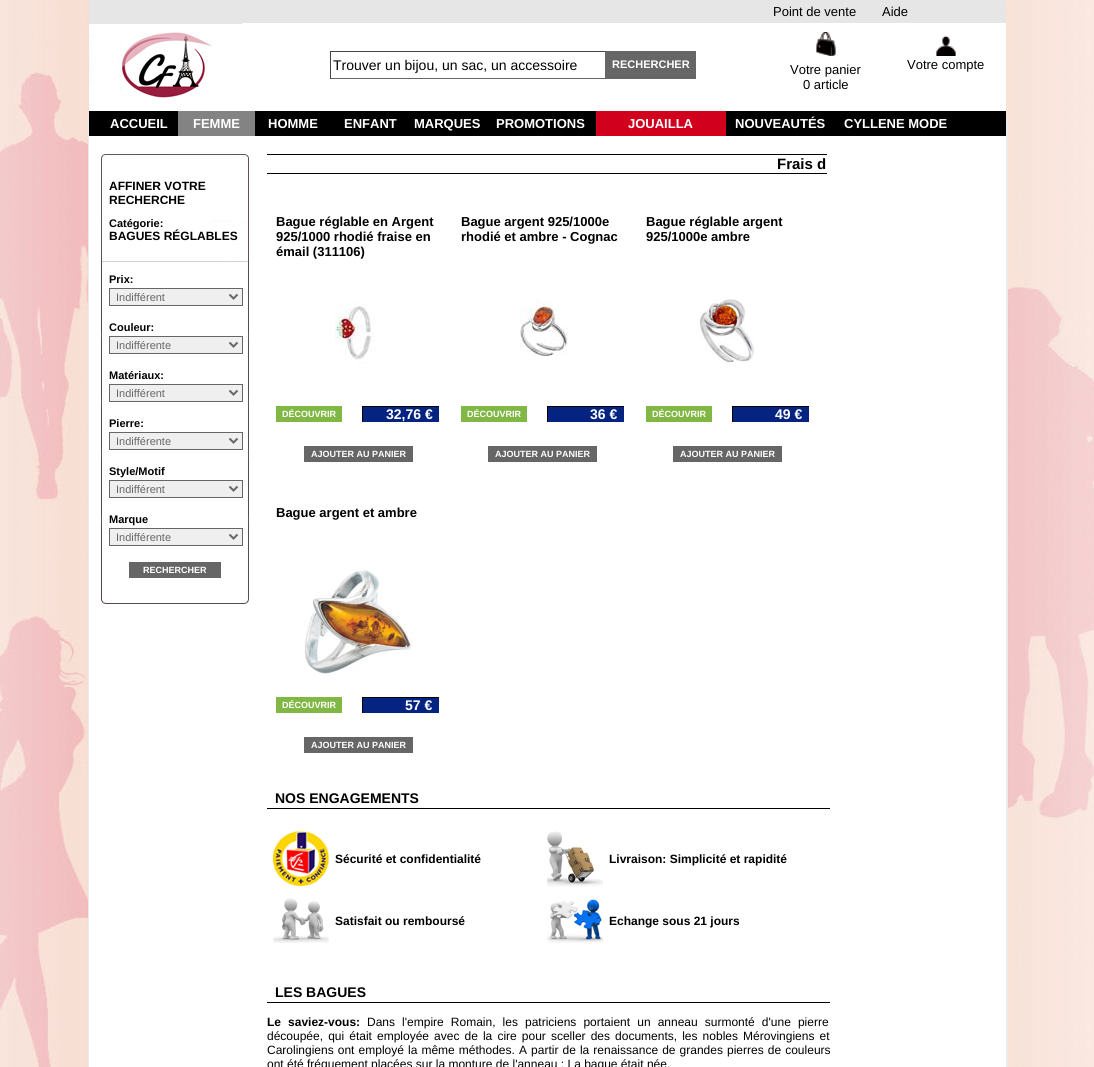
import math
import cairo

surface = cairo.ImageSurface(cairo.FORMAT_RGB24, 1094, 1067)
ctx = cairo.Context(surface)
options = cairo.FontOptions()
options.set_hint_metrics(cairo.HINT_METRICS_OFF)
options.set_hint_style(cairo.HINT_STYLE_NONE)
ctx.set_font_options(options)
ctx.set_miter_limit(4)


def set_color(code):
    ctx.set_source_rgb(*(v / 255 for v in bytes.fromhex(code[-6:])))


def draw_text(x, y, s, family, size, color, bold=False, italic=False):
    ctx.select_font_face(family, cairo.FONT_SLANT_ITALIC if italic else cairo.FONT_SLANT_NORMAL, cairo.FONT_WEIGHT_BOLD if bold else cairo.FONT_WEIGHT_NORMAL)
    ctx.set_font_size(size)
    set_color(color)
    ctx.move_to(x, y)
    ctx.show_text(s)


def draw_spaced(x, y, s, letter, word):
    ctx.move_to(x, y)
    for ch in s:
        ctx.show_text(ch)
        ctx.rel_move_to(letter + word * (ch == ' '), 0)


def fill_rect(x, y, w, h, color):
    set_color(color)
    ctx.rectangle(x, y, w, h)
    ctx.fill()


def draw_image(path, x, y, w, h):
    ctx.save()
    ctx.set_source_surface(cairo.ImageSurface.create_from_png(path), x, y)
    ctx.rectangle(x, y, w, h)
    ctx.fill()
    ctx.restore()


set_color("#ffffff")
ctx.paint()
draw_image("assets/img1.png", 0, 0, 1094, 1067)
fill_rect(89, 23, 917, 88, "#ffffff")
draw_image("assets/img2.png", 89, 0, 153, 98)
fill_rect(242, 0, 764, 23, "#e6e6e6")
draw_text(773, 16, "Point de vente", "Liberation Sans", 13, "#000000")
draw_text(882, 16, "Aide", "Liberation Sans", 13, "#000000")
fill_rect(330, 51, 276, 1, "#444444")
fill_rect(605, 51, 1, 28, "#666666")
fill_rect(330, 78, 276, 1, "#666666")
fill_rect(330, 51, 1, 28, "#444444")
draw_text(333, 70, "Trouver un bijou, un sac, un accessoire", "Liberation Sans", 14, "#000000")
fill_rect(606, 51, 90, 28, "#666666")
draw_text(612, 68, "RECHERCHER", "Liberation Sans", 11, "#ffffff", bold=True)
draw_image("assets/img3.png", 816, 32, 20, 24)
draw_text(790, 74, "Votre panier", "Liberation Sans", 13, "#000000")
draw_text(803, 89, "0 article", "Liberation Sans", 13, "#000000")
draw_image("assets/img4.png", 936, 36, 20, 20)
draw_text(907, 69, "Votre compte", "Liberation Sans", 13, "#000000")
fill_rect(89, 111, 917, 25, "#000000")
draw_text(110, 128, "ACCUEIL", "Liberation Sans", 13, "#ffffff", bold=True)
fill_rect(178, 111, 77, 25, "#838383")
draw_text(193, 128, "FEMME", "Liberation Sans", 13, "#ffffff", bold=True)
draw_text(268, 128, "HOMME", "Liberation Sans", 13, "#ffffff", bold=True)
draw_text(344, 128, "ENFANT", "Liberation Sans", 13, "#ffffff", bold=True)
draw_text(414, 128, "MARQUES", "Liberation Sans", 13, "#ffffff", bold=True)
draw_text(496, 128, "PROMOTIONS", "Liberation Sans", 13, "#ffffff", bold=True)
fill_rect(596, 111, 130, 25, "#d1001d")
draw_text(628, 128, "JOUAILLA", "Liberation Sans", 13, "#ffffff", bold=True)
draw_text(735, 128, "NOUVEAUTÉS", "Liberation Sans", 13, "#ffffff", bold=True)
draw_text(844, 128, "CYLLENE MODE", "Liberation Sans", 13, "#ffffff", bold=True)
fill_rect(88, 118, 1, 949, "#eaebed")
fill_rect(89, 136, 917, 931, "#ffffff")
draw_image("assets/img5.png", 101, 154, 148, 450)
draw_text(109, 190, "AFFINER VOTRE", "Liberation Sans", 12, "#000000", bold=True)
draw_text(109, 204, "RECHERCHE", "Liberation Sans", 12, "#000000", bold=True)
draw_text(109, 227, "Catégorie:", "Liberation Sans", 11, "#000000", bold=True)
draw_text(109, 240, "BAGUES RÉGLABLES", "Liberation Sans", 12, "#000000", bold=True)
draw_text(109, 283, "Prix:", "Liberation Sans", 11, "#000000", bold=True)
set_color("#efefef")
ctx.rectangle(109.5, 288.5, 133, 17)
ctx.fill_preserve()
set_color("#666666")
ctx.set_line_width(1)
ctx.stroke()
ctx.new_path()
ctx.move_to(229.5, 294.5)
ctx.line_to(233.5, 298.5)
ctx.line_to(237.5, 294.5)
ctx.set_line_width(2)
ctx.stroke()
draw_text(116, 301, "Indifférent", "Liberation Sans", 11, "#666666")
draw_text(109, 331, "Couleur:", "Liberation Sans", 11, "#000000", bold=True)
set_color("#efefef")
ctx.rectangle(109.5, 336.5, 133, 17)
ctx.fill_preserve()
set_color("#666666")
ctx.set_line_width(1)
ctx.stroke()
ctx.new_path()
ctx.move_to(229.5, 342.5)
ctx.line_to(233.5, 346.5)
ctx.line_to(237.5, 342.5)
ctx.set_line_width(2)
ctx.stroke()
draw_text(116, 349, "Indifférente", "Liberation Sans", 11, "#666666")
draw_text(109, 379, "Matériaux:", "Liberation Sans", 11, "#000000", bold=True)
set_color("#efefef")
ctx.rectangle(109.5, 384.5, 133, 17)
ctx.fill_preserve()
set_color("#666666")
ctx.set_line_width(1)
ctx.stroke()
ctx.new_path()
ctx.move_to(229.5, 390.5)
ctx.line_to(233.5, 394.5)
ctx.line_to(237.5, 390.5)
ctx.set_line_width(2)
ctx.stroke()
draw_text(116, 397, "Indifférent", "Liberation Sans", 11, "#666666")
draw_text(109, 427, "Pierre:", "Liberation Sans", 11, "#000000", bold=True)
set_color("#efefef")
ctx.rectangle(109.5, 432.5, 133, 17)
ctx.fill_preserve()
set_color("#666666")
ctx.set_line_width(1)
ctx.stroke()
ctx.new_path()
ctx.move_to(229.5, 438.5)
ctx.line_to(233.5, 442.5)
ctx.line_to(237.5, 438.5)
ctx.set_line_width(2)
ctx.stroke()
draw_text(116, 445, "Indifférente", "Liberation Sans", 11, "#666666")
draw_text(109, 475, "Style/Motif", "Liberation Sans", 11, "#000000", bold=True)
set_color("#efefef")
ctx.rectangle(109.5, 480.5, 133, 17)
ctx.fill_preserve()
set_color("#666666")
ctx.set_line_width(1)
ctx.stroke()
ctx.new_path()
ctx.move_to(229.5, 486.5)
ctx.line_to(233.5, 490.5)
ctx.line_to(237.5, 486.5)
ctx.set_line_width(2)
ctx.stroke()
draw_text(116, 493, "Indifférent", "Liberation Sans", 11, "#666666")
draw_text(109, 523, "Marque", "Liberation Sans", 11, "#000000", bold=True)
set_color("#efefef")
ctx.rectangle(109.5, 528.5, 133, 17)
ctx.fill_preserve()
set_color("#666666")
ctx.set_line_width(1)
ctx.stroke()
ctx.new_path()
ctx.move_to(229.5, 534.5)
ctx.line_to(233.5, 538.5)
ctx.line_to(237.5, 534.5)
ctx.set_line_width(2)
ctx.stroke()
draw_text(116, 541, "Indifférente", "Liberation Sans", 11, "#666666")
fill_rect(129, 562, 92, 16, "#666666")
draw_text(143, 573, "RECHERCHER", "Liberation Sans", 9, "#ffffff", bold=True)
fill_rect(267, 154, 560, 1, "#000000")
fill_rect(267, 173, 560, 1, "#000000")
draw_text(777, 169, "Frais d", "Liberation Sans", 15, "#000000", bold=True)
draw_text(276, 226, "Bague réglable en Argent", "Liberation Sans", 13, "#000000", bold=True)
draw_text(276, 241, "925/1000 rhodié fraise en", "Liberation Sans", 13, "#000000", bold=True)
draw_text(276, 256, "émail (311106)", "Liberation Sans", 13, "#000000", bold=True)
draw_image("assets/img6.png", 335, 301, 40, 63)
fill_rect(276, 406, 66, 16, "#81b745")
draw_text(282, 417, "DÉCOUVRIR", "Liberation Sans", 9, "#ffffff", bold=True)
draw_image("assets/img7.png", 362, 406, 77, 16)
draw_text(386, 419, "32,76 €", "Liberation Sans", 14, "#ffffff", bold=True)
fill_rect(304, 446, 109, 16, "#666666")
draw_text(311, 457, "AJOUTER AU PANIER", "Liberation Sans", 9, "#ffffff", bold=True)
draw_text(461, 226, "Bague argent 925/1000e", "Liberation Sans", 13, "#000000", bold=True)
draw_text(461, 241, "rhodié et ambre - Cognac", "Liberation Sans", 13, "#000000", bold=True)
draw_image("assets/img8.png", 520, 300, 48, 56)
fill_rect(461, 406, 66, 16, "#81b745")
draw_text(467, 417, "DÉCOUVRIR", "Liberation Sans", 9, "#ffffff", bold=True)
draw_image("assets/img7.png", 547, 406, 77, 16)
draw_text(590, 419, "36 €", "Liberation Sans", 14, "#ffffff", bold=True)
fill_rect(488, 446, 109, 16, "#666666")
draw_text(495, 457, "AJOUTER AU PANIER", "Liberation Sans", 9, "#ffffff", bold=True)
draw_text(646, 226, "Bague réglable argent", "Liberation Sans", 13, "#000000", bold=True)
draw_text(646, 241, "925/1000e ambre", "Liberation Sans", 13, "#000000", bold=True)
draw_image("assets/img9.png", 699, 298, 56, 65)
fill_rect(646, 406, 66, 16, "#81b745")
draw_text(652, 417, "DÉCOUVRIR", "Liberation Sans", 9, "#ffffff", bold=True)
draw_image("assets/img7.png", 732, 406, 77, 16)
draw_text(775, 419, "49 €", "Liberation Sans", 14, "#ffffff", bold=True)
fill_rect(673, 446, 109, 16, "#666666")
draw_text(680, 457, "AJOUTER AU PANIER", "Liberation Sans", 9, "#ffffff", bold=True)
draw_text(276, 517, "Bague argent et ambre", "Liberation Sans", 13, "#000000", bold=True)
draw_image("assets/img10.png", 304, 567, 109, 110)
fill_rect(276, 697, 66, 16, "#81b745")
draw_text(282, 708, "DÉCOUVRIR", "Liberation Sans", 9, "#ffffff", bold=True)
draw_image("assets/img7.png", 362, 697, 77, 16)
draw_text(405, 710, "57 €", "Liberation Sans", 14, "#ffffff", bold=True)
fill_rect(304, 737, 109, 16, "#666666")
draw_text(311, 748, "AJOUTER AU PANIER", "Liberation Sans", 9, "#ffffff", bold=True)
fill_rect(267, 808, 563, 1, "#000000")
draw_text(275, 803, "NOS ENGAGEMENTS", "Liberation Sans", 14, "#000000", bold=True)
draw_image("assets/img11.png", 273, 831, 56, 55)
draw_text(335, 863, "Sécurité et confidentialité", "Liberation Sans", 12, "#000000", bold=True)
draw_image("assets/img12.png", 547, 831, 56, 56)
draw_text(609, 863, "Livraison: Simplicité et rapidité", "Liberation Sans", 12, "#000000", bold=True)
draw_image("assets/img13.png", 273, 898, 56, 45)
draw_text(335, 925, "Satisfait ou remboursé", "Liberation Sans", 12, "#000000", bold=True)
draw_image("assets/img14.png", 547, 899, 56, 44)
draw_text(609, 925, "Echange sous 21 jours", "Liberation Sans", 12, "#000000", bold=True)
fill_rect(267, 1002, 563, 1, "#000000")
draw_text(275, 997, "LES BAGUES", "Liberation Sans", 14, "#000000", bold=True)
ctx.set_font_size(12)
draw_spaced(267, 1026, "Le saviez-vous:", 0, 3.75)
ctx.select_font_face("Liberation Sans")
draw_spaced(367, 1026, "Dans l'empire Romain, les patriciens portaient un anneau surmonté d'une pierre", 0, 3.75)
draw_spaced(267, 1040, "découpée, qui était employée avec de la cire pour sceller des documents, les nobles Mérovingiens et", 0, 1.75)
draw_spaced(267, 1054, "Carolingiens ont employé la même méthodes.", 0, 0.75)
draw_spaced(519, 1054, "A partir de la renaissance de grandes pierres de couleurs", 0, 0.75)
draw_text(267, 1068, "ont été fréquement placées sur la monture de l'anneau : La bague était née.", "Liberation Sans", 12, "#000000")
fill_rect(1006, 118, 2, 949, "#eaebed")
surface.write_to_png("output.png")
